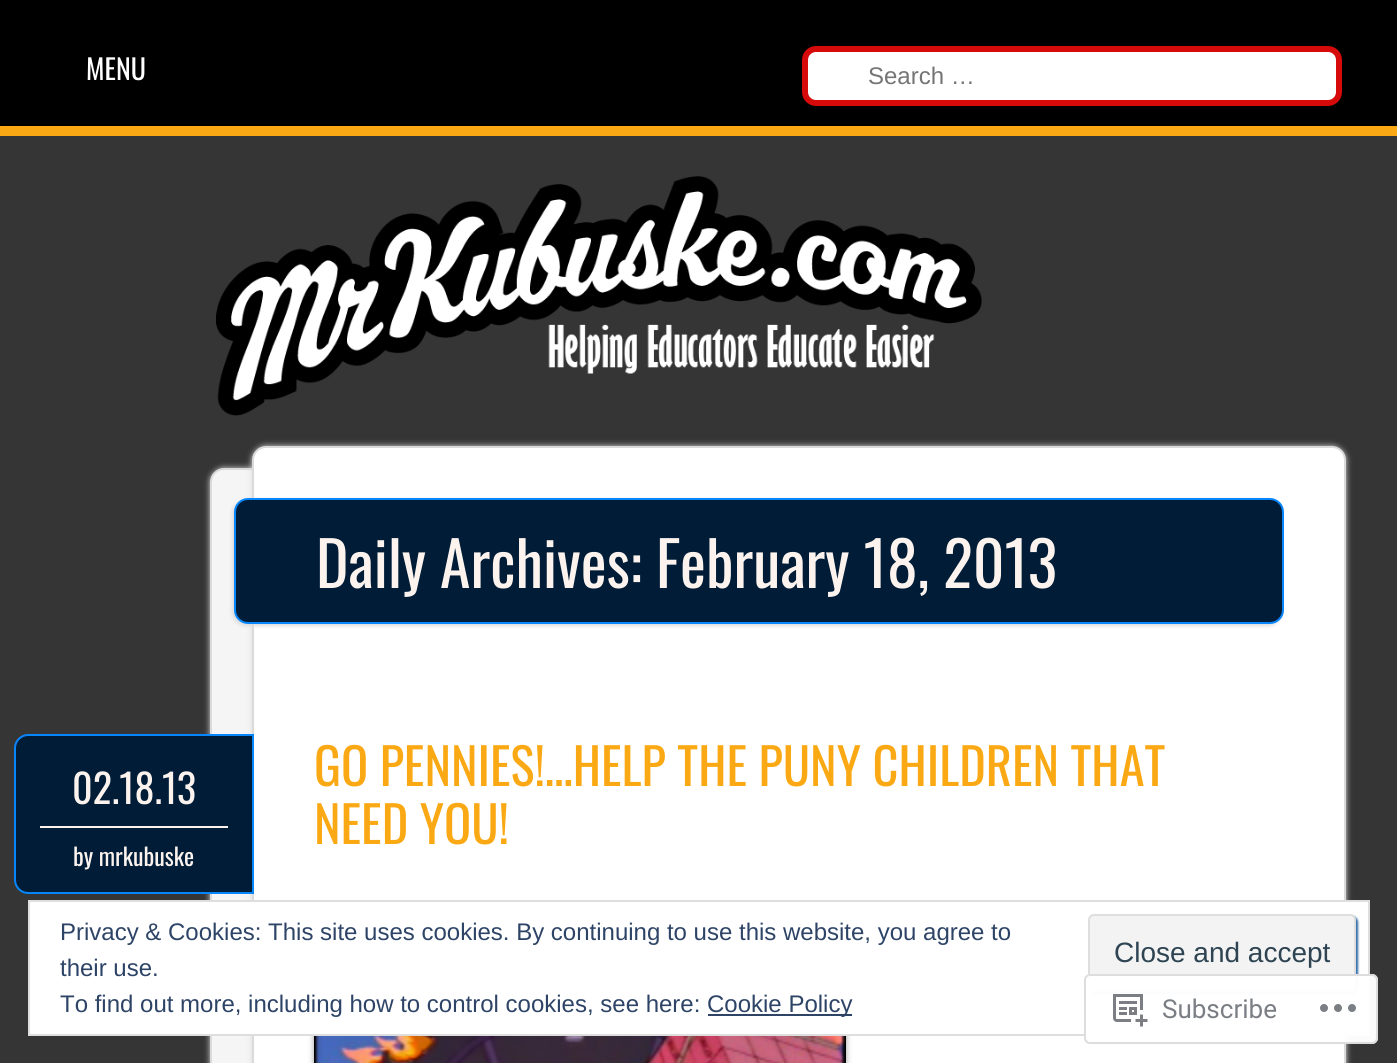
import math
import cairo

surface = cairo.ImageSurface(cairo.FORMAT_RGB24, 1397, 1063)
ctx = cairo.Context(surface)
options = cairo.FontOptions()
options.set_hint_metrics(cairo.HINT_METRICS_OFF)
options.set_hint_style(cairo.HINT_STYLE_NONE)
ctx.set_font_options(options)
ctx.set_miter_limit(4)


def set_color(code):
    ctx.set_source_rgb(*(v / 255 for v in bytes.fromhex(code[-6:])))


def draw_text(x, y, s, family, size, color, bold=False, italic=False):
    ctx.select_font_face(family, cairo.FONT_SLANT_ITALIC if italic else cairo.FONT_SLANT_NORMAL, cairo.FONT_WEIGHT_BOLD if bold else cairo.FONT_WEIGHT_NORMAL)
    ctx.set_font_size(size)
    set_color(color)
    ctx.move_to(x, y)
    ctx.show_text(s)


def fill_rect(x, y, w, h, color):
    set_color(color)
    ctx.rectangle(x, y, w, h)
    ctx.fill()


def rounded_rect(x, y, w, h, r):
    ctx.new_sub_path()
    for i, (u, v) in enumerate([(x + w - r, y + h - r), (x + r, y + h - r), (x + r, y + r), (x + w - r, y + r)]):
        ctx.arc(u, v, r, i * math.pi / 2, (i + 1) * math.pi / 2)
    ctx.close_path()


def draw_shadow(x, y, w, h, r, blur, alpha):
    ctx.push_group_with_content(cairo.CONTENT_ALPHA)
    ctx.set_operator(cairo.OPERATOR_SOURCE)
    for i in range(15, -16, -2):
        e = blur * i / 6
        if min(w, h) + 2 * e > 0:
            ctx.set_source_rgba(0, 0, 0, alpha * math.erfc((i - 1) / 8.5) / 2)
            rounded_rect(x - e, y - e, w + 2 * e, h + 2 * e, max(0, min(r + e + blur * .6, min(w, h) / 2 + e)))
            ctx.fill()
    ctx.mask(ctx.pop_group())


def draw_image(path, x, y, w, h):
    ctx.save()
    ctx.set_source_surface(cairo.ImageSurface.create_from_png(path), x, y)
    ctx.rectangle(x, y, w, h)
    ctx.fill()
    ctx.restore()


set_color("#353535")
ctx.paint()
fill_rect(0, 0, 1397, 126, "#000000")
fill_rect(0, 126, 1397, 10, "#faa914")
draw_text(86, 80, "MENU", "Oswald", 28, "#ffffff")
rounded_rect(805, 49, 534, 54, 11)
ctx.fill_preserve()
set_color("#d60a0a")
ctx.set_line_width(6)
ctx.stroke()
draw_text(868, 84, "Search …", "Liberation Sans", 24, "#757575")
draw_image("assets/img1.png", 216, 176, 766, 240)
set_color("#dadada")
draw_shadow(210, 468, 1132, 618, 14, 3, 1)
set_color("#f5f5f5")
rounded_rect(211, 469, 1130, 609, 13)
ctx.fill_preserve()
set_color("#dadada")
ctx.set_line_width(2)
ctx.stroke()
set_color("#dadada")
draw_shadow(252, 446, 1094, 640, 14, 3, 1)
set_color("#ffffff")
rounded_rect(253, 447, 1092, 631, 13)
ctx.fill_preserve()
set_color("#dadada")
ctx.stroke()
set_color("#dadada")
draw_shadow(232, 500, 1050, 126, 14, 2, 1)
set_color("#001c37")
rounded_rect(235, 499, 1048, 124, 13)
ctx.fill_preserve()
set_color("#0786fc")
ctx.stroke()
draw_text(316, 588, "Daily Archives: February 18, 2013", "Oswald", 61.6, "#fcf3ee")
set_color("#001c37")
ctx.new_path()
ctx.move_to(28, 735)
ctx.line_to(253, 735)
ctx.line_to(253, 893)
ctx.line_to(28, 893)
ctx.curve_to(21, 893, 15, 887, 15, 880)
ctx.line_to(15, 748)
ctx.curve_to(15, 741, 21, 735, 28, 735)
ctx.close_path()
ctx.fill_preserve()
set_color("#0786fc")
ctx.stroke()
fill_rect(40, 826, 188, 2, "#fcf3ee")
draw_text(72, 804, "02.18.13", "Oswald", 40, "#fcf3ee")
draw_text(73, 866, "by mrkubuske", "Oswald", 24, "#fcf3ee")
draw_text(314, 786, "GO PENNIES!…HELP THE PUNY CHILDREN THAT", "Oswald", 50.4, "#faa914")
draw_text(314, 844, "NEED YOU!", "Oswald", 50.4, "#faa914")
set_color("#000000")
draw_shadow(314, 942, 532, 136, 6, 3, 0.4)
draw_image("assets/img2.png", 314, 1036, 532, 27)
set_color("#ffffff")
ctx.rectangle(29, 901, 1340, 134)
ctx.fill_preserve()
set_color("#dedede")
ctx.stroke()
draw_text(60, 940, "Privacy & Cookies: This site uses cookies. By continuing to use this website, you agree to", "Liberation Sans", 24, "#2e4467")
draw_text(60, 976, "their use.", "Liberation Sans", 24, "#2e4467")
set_color("#2e6aa7")
draw_shadow(1090, 916, 268, 78, 6, 1, 1)
set_color("#f3f3f3")
rounded_rect(1089, 915, 266, 76, 5)
ctx.fill_preserve()
set_color("#dedede")
ctx.stroke()
draw_text(1114, 962, "Close and accept", "Liberation Sans", 28, "#2e4453")
draw_text(60, 1012, "To find out more, including how to control cookies, see here:", "Liberation Sans", 24, "#2e4467")
fill_rect(708, 1014, 144, 2, "#2e4467")
draw_text(707, 1012, "Cookie Policy", "Liberation Sans", 24, "#2e4467")
ctx.set_source_rgba(1, 1, 1, 0.98)
rounded_rect(1084, 974, 294, 70, 6)
ctx.fill()
rounded_rect(1085, 975, 292, 68, 5)
ctx.set_source_rgba(0.863, 0.863, 0.871, 0.98)
ctx.stroke()
draw_image("assets/img3.png", 1113, 994, 35, 33)
draw_text(1162, 1018, "Subscribe", "Roboto", 26, "#7b7f85")
draw_image("assets/img4.png", 1320, 1004, 36, 8)
surface.write_to_png("output.png")
